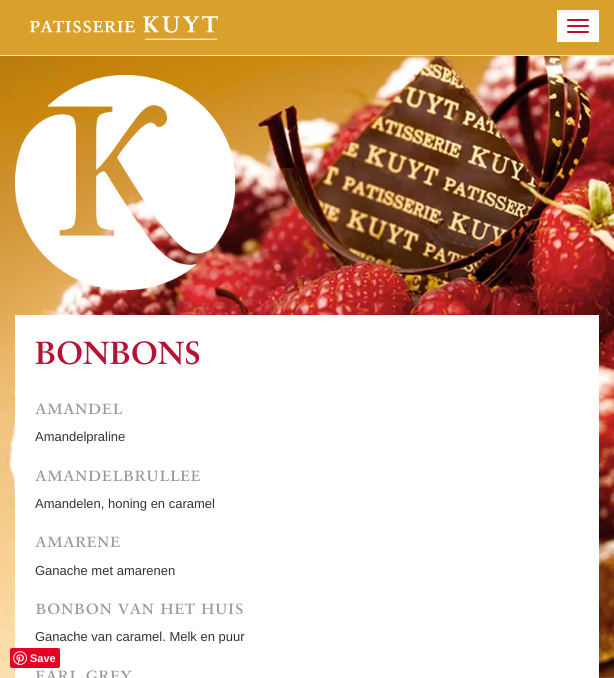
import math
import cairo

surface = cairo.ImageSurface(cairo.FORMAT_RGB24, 614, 678)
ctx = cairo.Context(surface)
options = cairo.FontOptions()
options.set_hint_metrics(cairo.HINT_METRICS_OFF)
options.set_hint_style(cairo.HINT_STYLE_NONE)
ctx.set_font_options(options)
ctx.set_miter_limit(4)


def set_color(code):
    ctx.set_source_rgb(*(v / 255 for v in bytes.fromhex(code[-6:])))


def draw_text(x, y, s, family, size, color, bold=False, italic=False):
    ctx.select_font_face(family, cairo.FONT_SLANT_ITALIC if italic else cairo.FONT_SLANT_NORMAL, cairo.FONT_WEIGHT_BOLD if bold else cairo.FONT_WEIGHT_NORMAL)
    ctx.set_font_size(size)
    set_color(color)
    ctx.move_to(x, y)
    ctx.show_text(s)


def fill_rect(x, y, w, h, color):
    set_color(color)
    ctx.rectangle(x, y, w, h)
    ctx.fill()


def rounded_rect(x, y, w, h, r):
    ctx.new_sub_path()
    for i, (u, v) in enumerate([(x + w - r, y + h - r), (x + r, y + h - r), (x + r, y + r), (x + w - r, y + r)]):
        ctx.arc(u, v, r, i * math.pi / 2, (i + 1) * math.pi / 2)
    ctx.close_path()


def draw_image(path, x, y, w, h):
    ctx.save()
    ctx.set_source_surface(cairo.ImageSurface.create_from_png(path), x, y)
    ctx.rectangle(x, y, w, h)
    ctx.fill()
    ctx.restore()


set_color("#ffffff")
ctx.paint()
draw_image("assets/img1.png", 0, 56, 614, 622)
fill_rect(0, 0, 614, 55, "#d9a02c")
fill_rect(0, 55, 614, 1, "#e7e7e7")
draw_image("assets/img2.png", 30, 15, 188, 25)
fill_rect(557, 10, 42, 32, "#ffffff")
set_color("#b71234")
rounded_rect(567, 19, 22, 2, 1)
ctx.fill()
rounded_rect(567, 25, 22, 2, 1)
ctx.fill()
rounded_rect(567, 31, 22, 2, 1)
ctx.fill()
draw_image("assets/img3.png", 15, 75, 220, 215)
fill_rect(15, 315, 584, 363, "#ffffff")
draw_text(35, 364, "BONBONS", "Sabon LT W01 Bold", 32, "#b71234", bold=True)
draw_text(35, 414, "amandel", "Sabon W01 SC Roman", 21, "#999999")
draw_text(35, 441, "Amandelpraline", "Liberation Sans", 13, "#333333")
draw_text(35, 481, "amandelbrullee", "Sabon W01 SC Roman", 21, "#999999")
draw_text(35, 508, "Amandelen, honing en caramel", "Liberation Sans", 13, "#333333")
draw_text(35, 547, "amarene", "Sabon W01 SC Roman", 21, "#999999")
draw_text(35, 575, "Ganache met amarenen", "Liberation Sans", 13, "#333333")
draw_text(35, 614, "bonbon van het huis", "Sabon W01 SC Roman", 21, "#999999")
draw_text(35, 641, "Ganache van caramel. Melk en puur", "Liberation Sans", 13, "#333333")
draw_text(35, 681, "earl grey", "Sabon W01 SC Roman", 21, "#999999")
set_color("#e60023")
rounded_rect(10, 648, 50, 20, 2)
ctx.fill()
draw_image("assets/img4.png", 13, 651, 14, 14)
draw_text(30, 662, "Save", "Liberation Sans", 11, "#ffffff", bold=True)
surface.write_to_png("output.png")
